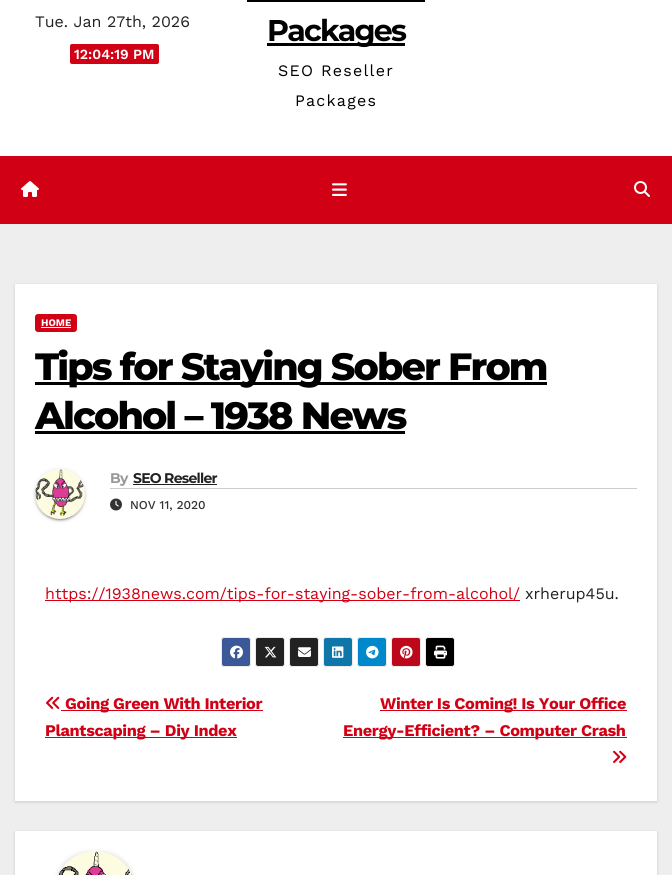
import math
import cairo

surface = cairo.ImageSurface(cairo.FORMAT_RGB24, 672, 875)
ctx = cairo.Context(surface)
options = cairo.FontOptions()
options.set_hint_metrics(cairo.HINT_METRICS_OFF)
options.set_hint_style(cairo.HINT_STYLE_NONE)
ctx.set_font_options(options)
ctx.set_miter_limit(4)


def set_color(code):
    ctx.set_source_rgb(*(v / 255 for v in bytes.fromhex(code[-6:])))


def draw_text(x, y, s, family, size, color, bold=False, italic=False):
    ctx.select_font_face(family, cairo.FONT_SLANT_ITALIC if italic else cairo.FONT_SLANT_NORMAL, cairo.FONT_WEIGHT_BOLD if bold else cairo.FONT_WEIGHT_NORMAL)
    ctx.set_font_size(size)
    set_color(color)
    ctx.move_to(x, y)
    ctx.show_text(s)


def draw_spaced(x, y, s, letter, word):
    ctx.move_to(x, y)
    for ch in s:
        ctx.show_text(ch)
        ctx.rel_move_to(letter + word * (ch == ' '), 0)


def fill_rect(x, y, w, h, color):
    set_color(color)
    ctx.rectangle(x, y, w, h)
    ctx.fill()


def rounded_rect(x, y, w, h, r):
    ctx.new_sub_path()
    for i, (u, v) in enumerate([(x + w - r, y + h - r), (x + r, y + h - r), (x + r, y + r), (x + w - r, y + r)]):
        ctx.arc(u, v, r, i * math.pi / 2, (i + 1) * math.pi / 2)
    ctx.close_path()


def draw_shadow(x, y, w, h, r, blur, alpha):
    ctx.push_group_with_content(cairo.CONTENT_ALPHA)
    ctx.set_operator(cairo.OPERATOR_SOURCE)
    for i in range(15, -16, -2):
        e = blur * i / 6
        if min(w, h) + 2 * e > 0:
            ctx.set_source_rgba(0, 0, 0, alpha * math.erfc((i - 1) / 8.5) / 2)
            rounded_rect(x - e, y - e, w + 2 * e, h + 2 * e, max(0, min(r + e + blur * .6, min(w, h) / 2 + e)))
            ctx.fill()
    ctx.mask(ctx.pop_group())


def draw_image(path, x, y, w, h):
    ctx.save()
    ctx.set_source_surface(cairo.ImageSurface.create_from_png(path), x, y)
    ctx.rectangle(x, y, w, h)
    ctx.fill()
    ctx.restore()


set_color("#eeeeee")
ctx.paint()
fill_rect(0, 0, 672, 156, "#ffffff")
draw_text(35, 27, "Tue. Jan 27th, 2026", "Work Sans", 16, "#222222")
set_color("#d10014")
rounded_rect(70, 44, 89, 20, 2)
ctx.fill()
draw_text(74, 59, "12:04:19 PM", "Work Sans SemiBold", 14, "#ffffff")
fill_rect(267, 43, 138, 3, "#000000")
ctx.select_font_face("Montserrat", cairo.FONT_SLANT_NORMAL, cairo.FONT_WEIGHT_BOLD)
ctx.set_font_size(30)
draw_spaced(267, 41, "Packages", -1.75, 0)
fill_rect(247, 0, 178, 2, "#000000")
ctx.select_font_face("Work Sans")
ctx.set_font_size(16)
draw_spaced(278, 76, "SEO Reseller", 1.25, 0)
draw_spaced(295, 106, "Packages", 1.25, 0)
fill_rect(0, 156, 672, 68, "#d10014")
draw_image("assets/img1.png", 21, 181, 18, 16)
draw_image("assets/img2.png", 332, 183, 15, 13)
draw_image("assets/img3.png", 634, 181, 16, 16)
set_color("#000000")
draw_shadow(15, 285, 642, 517, 0, 1.5, 0.15)
fill_rect(15, 284, 642, 517, "#ffffff")
set_color("#d10014")
rounded_rect(35, 314, 42, 18, 3)
ctx.fill()
draw_text(41, 326, "HOME", "Work Sans", 10, "#ffffff", bold=True)
fill_rect(41, 327, 30, 1, "#ffffff")
fill_rect(35, 382, 512, 3, "#000000")
ctx.select_font_face("Montserrat ExtraBold")
ctx.set_font_size(38)
draw_spaced(35, 380, "Tips for Staying Sober From", -1.9, 0)
draw_spaced(35, 429, "Alcohol – 1938 News", -1.9, 0)
fill_rect(35, 431, 370, 3, "#000000")
set_color("#000000")
draw_shadow(35, 470, 50, 50, 25, 2.5, 0.12)
draw_shadow(37, 474, 46, 46, 23, 0.5, 0.2)
draw_shadow(35, 471, 50, 50, 25, 1, 0.14)
draw_image("assets/img4.png", 35, 469, 50, 50)
fill_rect(110, 488, 527, 1, "#cccccc")
ctx.select_font_face("Montserrat", cairo.FONT_SLANT_NORMAL, cairo.FONT_WEIGHT_BOLD)
ctx.set_font_size(14)
set_color("#999999")
draw_spaced(110, 483, "By", -0.75, 0)
set_color("#222222")
draw_spaced(133, 483, "SEO Reseller", -0.75, 0)
fill_rect(133, 484, 84, 1, "#212121")
draw_image("assets/img5.png", 110, 498, 12, 13)
draw_text(130, 509, "NOV 11, 2020", "Work Sans Medium", 12, "#333333")
fill_rect(45, 600, 475, 1, "#d10014")
draw_text(45, 599, "https://1938news.com/tips-for-staying-sober-from-alcohol/", "Work Sans", 16, "#d10014")
draw_text(525, 599, "xrherup45u.", "Work Sans", 16, "#222222")
set_color("#3b5998")
rounded_rect(221.5, 637.5, 29, 29, 2.5)
ctx.fill_preserve()
set_color("#ebebeb")
ctx.set_line_width(1)
ctx.stroke()
draw_image("assets/img6.png", 230, 645, 13, 14)
set_color("#222222")
rounded_rect(255.5, 637.5, 29, 29, 2.5)
ctx.fill_preserve()
set_color("#ebebeb")
ctx.stroke()
draw_image("assets/img7.png", 264, 646, 13, 12)
set_color("#222222")
rounded_rect(289.5, 637.5, 29, 29, 2.5)
ctx.fill_preserve()
set_color("#ebebeb")
ctx.stroke()
draw_image("assets/img8.png", 298, 647, 13, 10)
set_color("#0e76a8")
rounded_rect(323.5, 637.5, 29, 29, 2.5)
ctx.fill_preserve()
set_color("#ebebeb")
ctx.stroke()
draw_image("assets/img9.png", 332, 646, 12, 12)
set_color("#0088cc")
rounded_rect(357.5, 637.5, 29, 29, 2.5)
ctx.fill_preserve()
set_color("#ebebeb")
ctx.stroke()
draw_image("assets/img10.png", 366, 645, 13, 14)
set_color("#bd081c")
rounded_rect(391.5, 637.5, 29, 29, 2.5)
ctx.fill_preserve()
set_color("#ebebeb")
ctx.stroke()
draw_image("assets/img11.png", 400, 645, 13, 14)
set_color("#000000")
rounded_rect(425.5, 637.5, 29, 29, 2.5)
ctx.fill_preserve()
set_color("#ebebeb")
ctx.stroke()
draw_image("assets/img12.png", 434, 645, 13, 14)
draw_image("assets/img13.png", 46, 696, 14, 13)
fill_rect(61, 710, 202, 1, "#d10014")
ctx.select_font_face("Work Sans", cairo.FONT_SLANT_NORMAL, cairo.FONT_WEIGHT_BOLD)
ctx.set_font_size(16.3)
draw_spaced(65, 709, "Going Green With Interior", -0.35, 0)
fill_rect(45, 737, 192, 1, "#d10014")
draw_spaced(45, 736, "Plantscaping – Diy Index", -0.35, 0)
fill_rect(380, 710, 247, 1, "#d10014")
draw_spaced(380, 709, "Winter Is Coming! Is Your Office", -0.35, 0)
fill_rect(343, 737, 284, 1, "#d10014")
draw_spaced(343, 736, "Energy-Efficient? – Computer Crash", -0.35, 0)
draw_image("assets/img14.png", 613, 750, 14, 13)
set_color("#000000")
draw_shadow(15, 832, 642, 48, 0, 1.5, 0.15)
fill_rect(15, 831, 642, 44, "#ffffff")
set_color("#000000")
draw_shadow(55, 852, 80, 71, 40, 2.5, 0.12)
draw_image("assets/img15.png", 58, 851, 74, 24)
surface.write_to_png("output.png")
